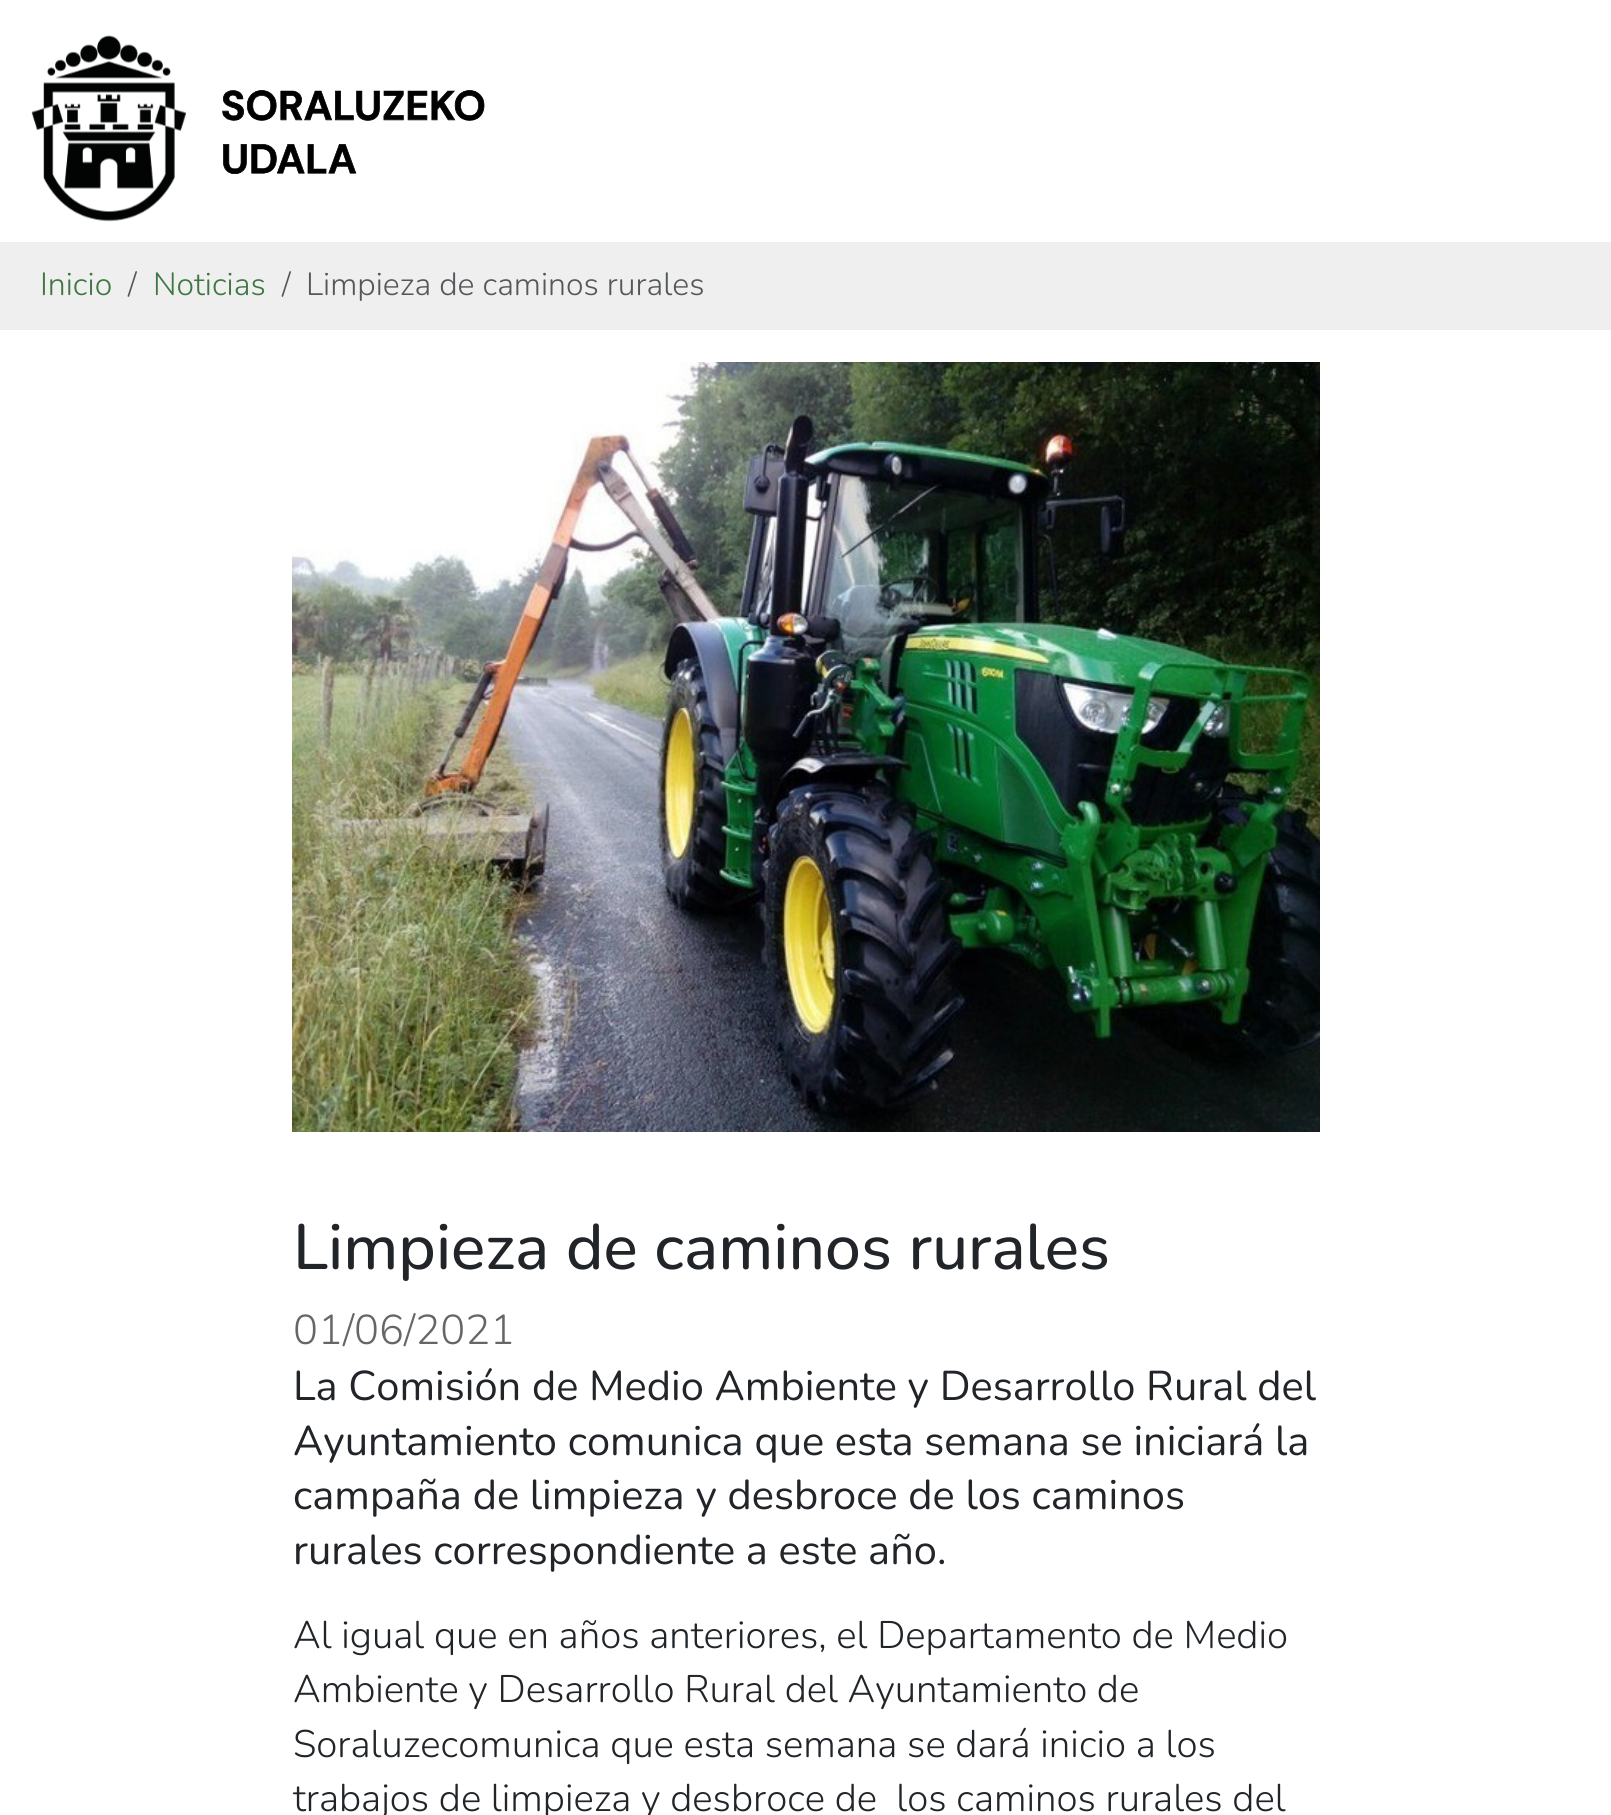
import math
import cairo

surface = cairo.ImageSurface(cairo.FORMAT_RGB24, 1611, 1815)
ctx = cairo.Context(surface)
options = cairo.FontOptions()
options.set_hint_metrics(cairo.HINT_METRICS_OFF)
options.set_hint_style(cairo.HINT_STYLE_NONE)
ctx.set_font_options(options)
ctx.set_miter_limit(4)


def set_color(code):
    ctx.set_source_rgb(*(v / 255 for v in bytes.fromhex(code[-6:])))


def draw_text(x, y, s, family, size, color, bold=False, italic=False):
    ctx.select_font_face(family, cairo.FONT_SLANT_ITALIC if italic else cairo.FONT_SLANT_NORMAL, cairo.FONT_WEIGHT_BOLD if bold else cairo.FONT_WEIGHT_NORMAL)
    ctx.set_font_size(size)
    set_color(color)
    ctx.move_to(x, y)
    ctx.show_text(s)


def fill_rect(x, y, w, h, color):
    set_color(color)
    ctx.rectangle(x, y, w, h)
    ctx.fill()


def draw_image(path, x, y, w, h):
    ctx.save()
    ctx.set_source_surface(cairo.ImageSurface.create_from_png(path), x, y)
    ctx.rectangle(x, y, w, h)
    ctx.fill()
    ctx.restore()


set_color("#ffffff")
ctx.paint()
draw_image("assets/img1.png", 31, 35, 454, 187)
fill_rect(0, 242, 1611, 88, "#efefef")
draw_text(40, 295, "Inicio", "Nunito Light", 32, "#3f7642")
draw_text(128, 295, "/", "Nunito Light", 32, "#55585b")
draw_text(153, 295, "Noticias", "Nunito Light", 32, "#3f7642")
draw_text(282, 295, "/", "Nunito Light", 32, "#55585b")
draw_text(306, 295, "Limpieza de caminos rurales", "Nunito Light", 32, "#55585b")
draw_image("assets/img2.png", 292, 362, 1028, 770)
draw_text(293, 1269, "Limpieza de caminos rurales", "Nunito Medium", 64, "#212529")
draw_text(293, 1344, "01/06/2021", "Nunito Light", 41.6, "#666666")
draw_text(293, 1400, "La Comisión de Medio Ambiente y Desarrollo Rural del", "Nunito", 41.6, "#212529")
draw_text(293, 1455, "Ayuntamiento comunica que esta semana se iniciará la", "Nunito", 41.6, "#212529")
draw_text(293, 1509, "campaña de limpieza y desbroce de los caminos", "Nunito", 41.6, "#212529")
draw_text(293, 1564, "rurales correspondiente a este año.", "Nunito", 41.6, "#212529")
draw_text(293, 1648, "Al igual que en años anteriores, el Departamento de Medio", "Nunito Light", 38.4, "#212529")
draw_text(293, 1702, "Ambiente y Desarrollo Rural del Ayuntamiento de", "Nunito Light", 38.4, "#212529")
draw_text(293, 1757, "Soraluzecomunica que esta semana se dará inicio a los", "Nunito Light", 38.4, "#212529")
draw_text(293, 1811, "trabajos de limpieza y desbroce de  los caminos rurales del", "Nunito Light", 38.4, "#212529")
surface.write_to_png("output.png")
